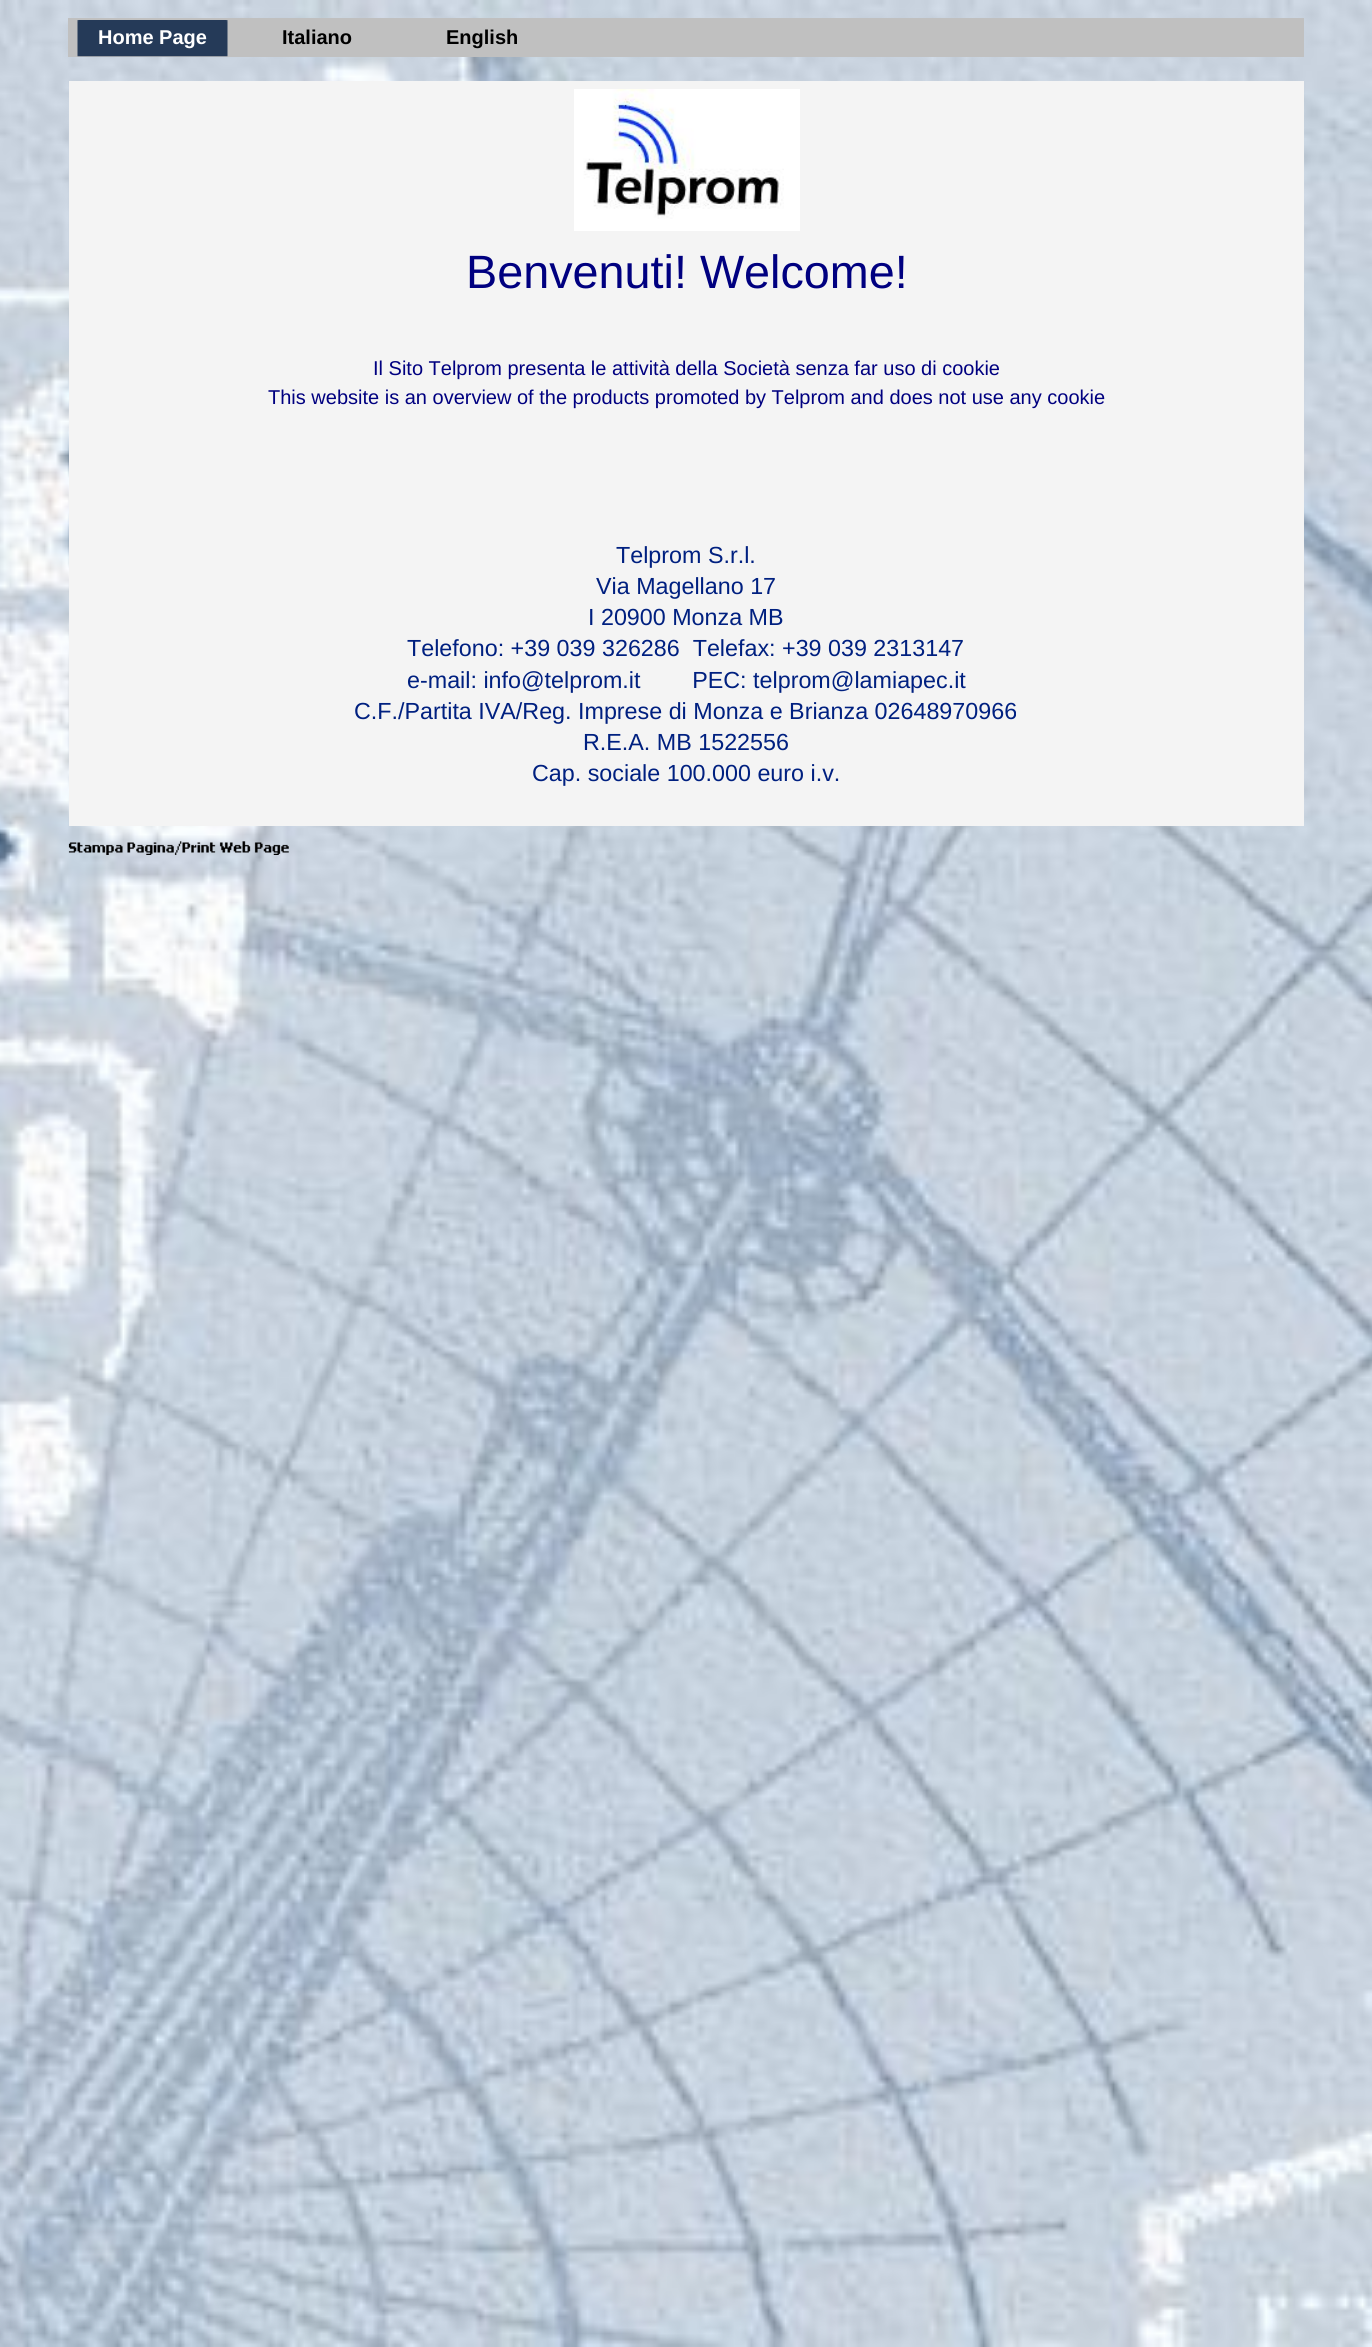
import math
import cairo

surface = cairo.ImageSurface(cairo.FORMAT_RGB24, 1372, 2347)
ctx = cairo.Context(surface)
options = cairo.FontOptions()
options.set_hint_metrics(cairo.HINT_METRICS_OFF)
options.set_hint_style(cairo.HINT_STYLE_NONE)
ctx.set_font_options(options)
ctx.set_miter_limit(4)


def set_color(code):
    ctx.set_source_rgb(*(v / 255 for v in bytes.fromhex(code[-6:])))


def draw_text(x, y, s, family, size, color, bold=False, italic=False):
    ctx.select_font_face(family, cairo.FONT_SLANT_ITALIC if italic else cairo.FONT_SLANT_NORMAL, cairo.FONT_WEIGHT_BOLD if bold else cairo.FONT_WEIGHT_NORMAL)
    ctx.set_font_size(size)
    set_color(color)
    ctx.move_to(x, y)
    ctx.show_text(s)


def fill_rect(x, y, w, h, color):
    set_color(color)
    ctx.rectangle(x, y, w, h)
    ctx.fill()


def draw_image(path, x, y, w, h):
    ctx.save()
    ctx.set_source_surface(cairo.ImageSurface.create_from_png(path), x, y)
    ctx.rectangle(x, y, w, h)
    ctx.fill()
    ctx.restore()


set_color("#ffffff")
ctx.paint()
draw_image("assets/img1.png", 0, 0, 1372, 2347)
fill_rect(68, 18, 1236, 39, "#c0c0c0")
draw_image("assets/img2.png", 77, 20, 151, 37)
draw_text(98, 44, "Home Page", "Liberation Sans", 20, "#ffffff", bold=True)
draw_text(282, 44, "Italiano", "Liberation Sans", 20, "#000000", bold=True)
draw_text(446, 44, "English", "Liberation Sans", 20, "#000000", bold=True)
fill_rect(69, 81, 1235, 745, "#f4f4f4")
draw_image("assets/img3.png", 574, 89, 226, 142)
draw_text(466, 288, "Benvenuti! Welcome!", "Liberation Sans", 46.75, "#000080")
draw_text(373, 375, "Il Sito Telprom presenta le attività della Società senza far uso di cookie", "Liberation Sans", 20, "#000080")
draw_text(268, 404, "This website is an overview of the products promoted by Telprom and does not use any cookie", "Liberation Sans", 20, "#000080")
draw_text(616, 563, "Telprom S.r.l.", "Liberation Sans", 23.3, "#002080")
draw_text(596, 594, "Via Magellano 17", "Liberation Sans", 23.3, "#002080")
draw_text(588, 625, "I 20900 Monza MB", "Liberation Sans", 23.3, "#002080")
draw_text(407, 656, "Telefono: +39 039 326286  Telefax: +39 039 2313147", "Liberation Sans", 23.3, "#002080")
draw_text(407, 688, "e-mail: info@telprom.it        PEC: telprom@lamiapec.it", "Liberation Sans", 23.3, "#002080")
draw_text(354, 719, "C.F./Partita IVA/Reg. Imprese di Monza e Brianza 02648970966", "Liberation Sans", 23.3, "#002080")
draw_text(583, 750, "R.E.A. MB 1522556", "Liberation Sans", 23.3, "#002080")
draw_text(532, 781, "Cap. sociale 100.000 euro i.v.", "Liberation Sans", 23.3, "#002080")
draw_image("assets/img4.png", 68, 841, 221, 14)
surface.write_to_png("output.png")
